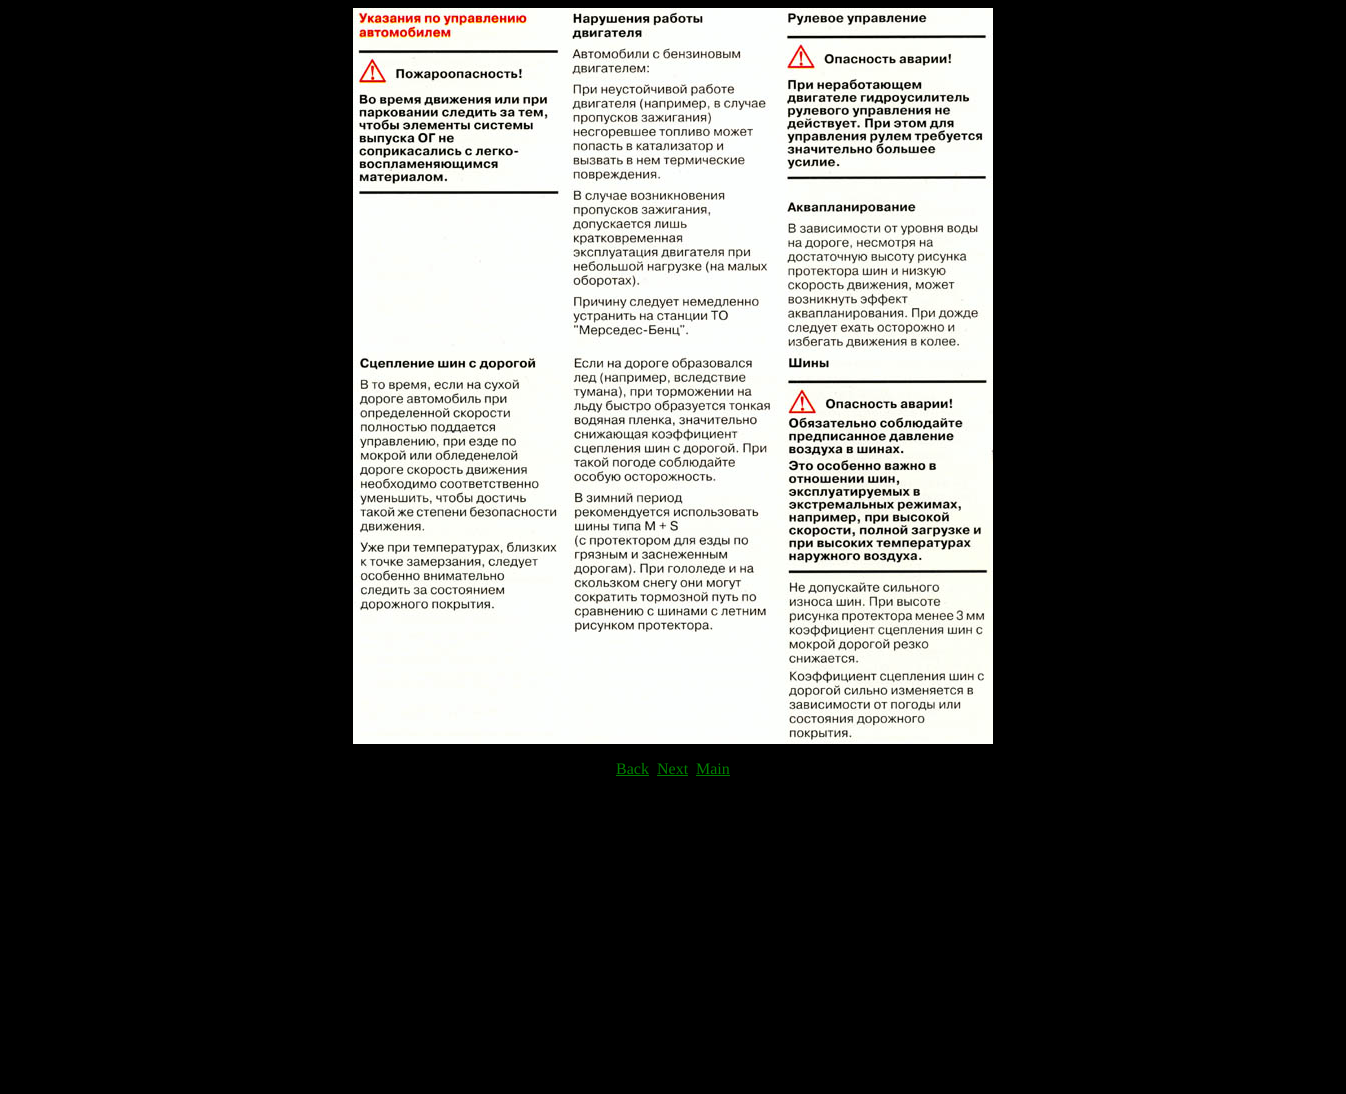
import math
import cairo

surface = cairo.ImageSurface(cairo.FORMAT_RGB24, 1346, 1094)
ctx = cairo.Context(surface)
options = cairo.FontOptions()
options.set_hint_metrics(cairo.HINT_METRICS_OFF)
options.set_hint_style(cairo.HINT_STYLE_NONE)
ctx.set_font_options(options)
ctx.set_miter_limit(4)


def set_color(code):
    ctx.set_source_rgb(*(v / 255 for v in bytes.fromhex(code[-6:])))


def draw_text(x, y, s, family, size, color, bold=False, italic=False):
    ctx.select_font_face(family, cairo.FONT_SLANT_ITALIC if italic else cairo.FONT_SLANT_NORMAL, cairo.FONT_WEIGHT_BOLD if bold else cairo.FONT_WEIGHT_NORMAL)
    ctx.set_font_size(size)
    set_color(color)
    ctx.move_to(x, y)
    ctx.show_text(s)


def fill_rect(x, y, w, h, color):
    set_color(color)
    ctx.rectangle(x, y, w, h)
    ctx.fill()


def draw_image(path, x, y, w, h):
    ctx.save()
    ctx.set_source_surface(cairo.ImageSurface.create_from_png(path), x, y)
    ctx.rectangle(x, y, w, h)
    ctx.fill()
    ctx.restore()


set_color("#000000")
ctx.paint()
draw_image("assets/img1.png", 353, 8, 640, 736)
draw_text(616, 774, "Back", "Liberation Serif", 16, "#008000")
fill_rect(616, 775, 33, 1, "#008000")
draw_text(657, 774, "Next", "Liberation Serif", 16, "#008000")
fill_rect(657, 775, 31, 1, "#008000")
draw_text(696, 774, "Main", "Liberation Serif", 16, "#008000")
fill_rect(696, 775, 34, 1, "#008000")
surface.write_to_png("output.png")
